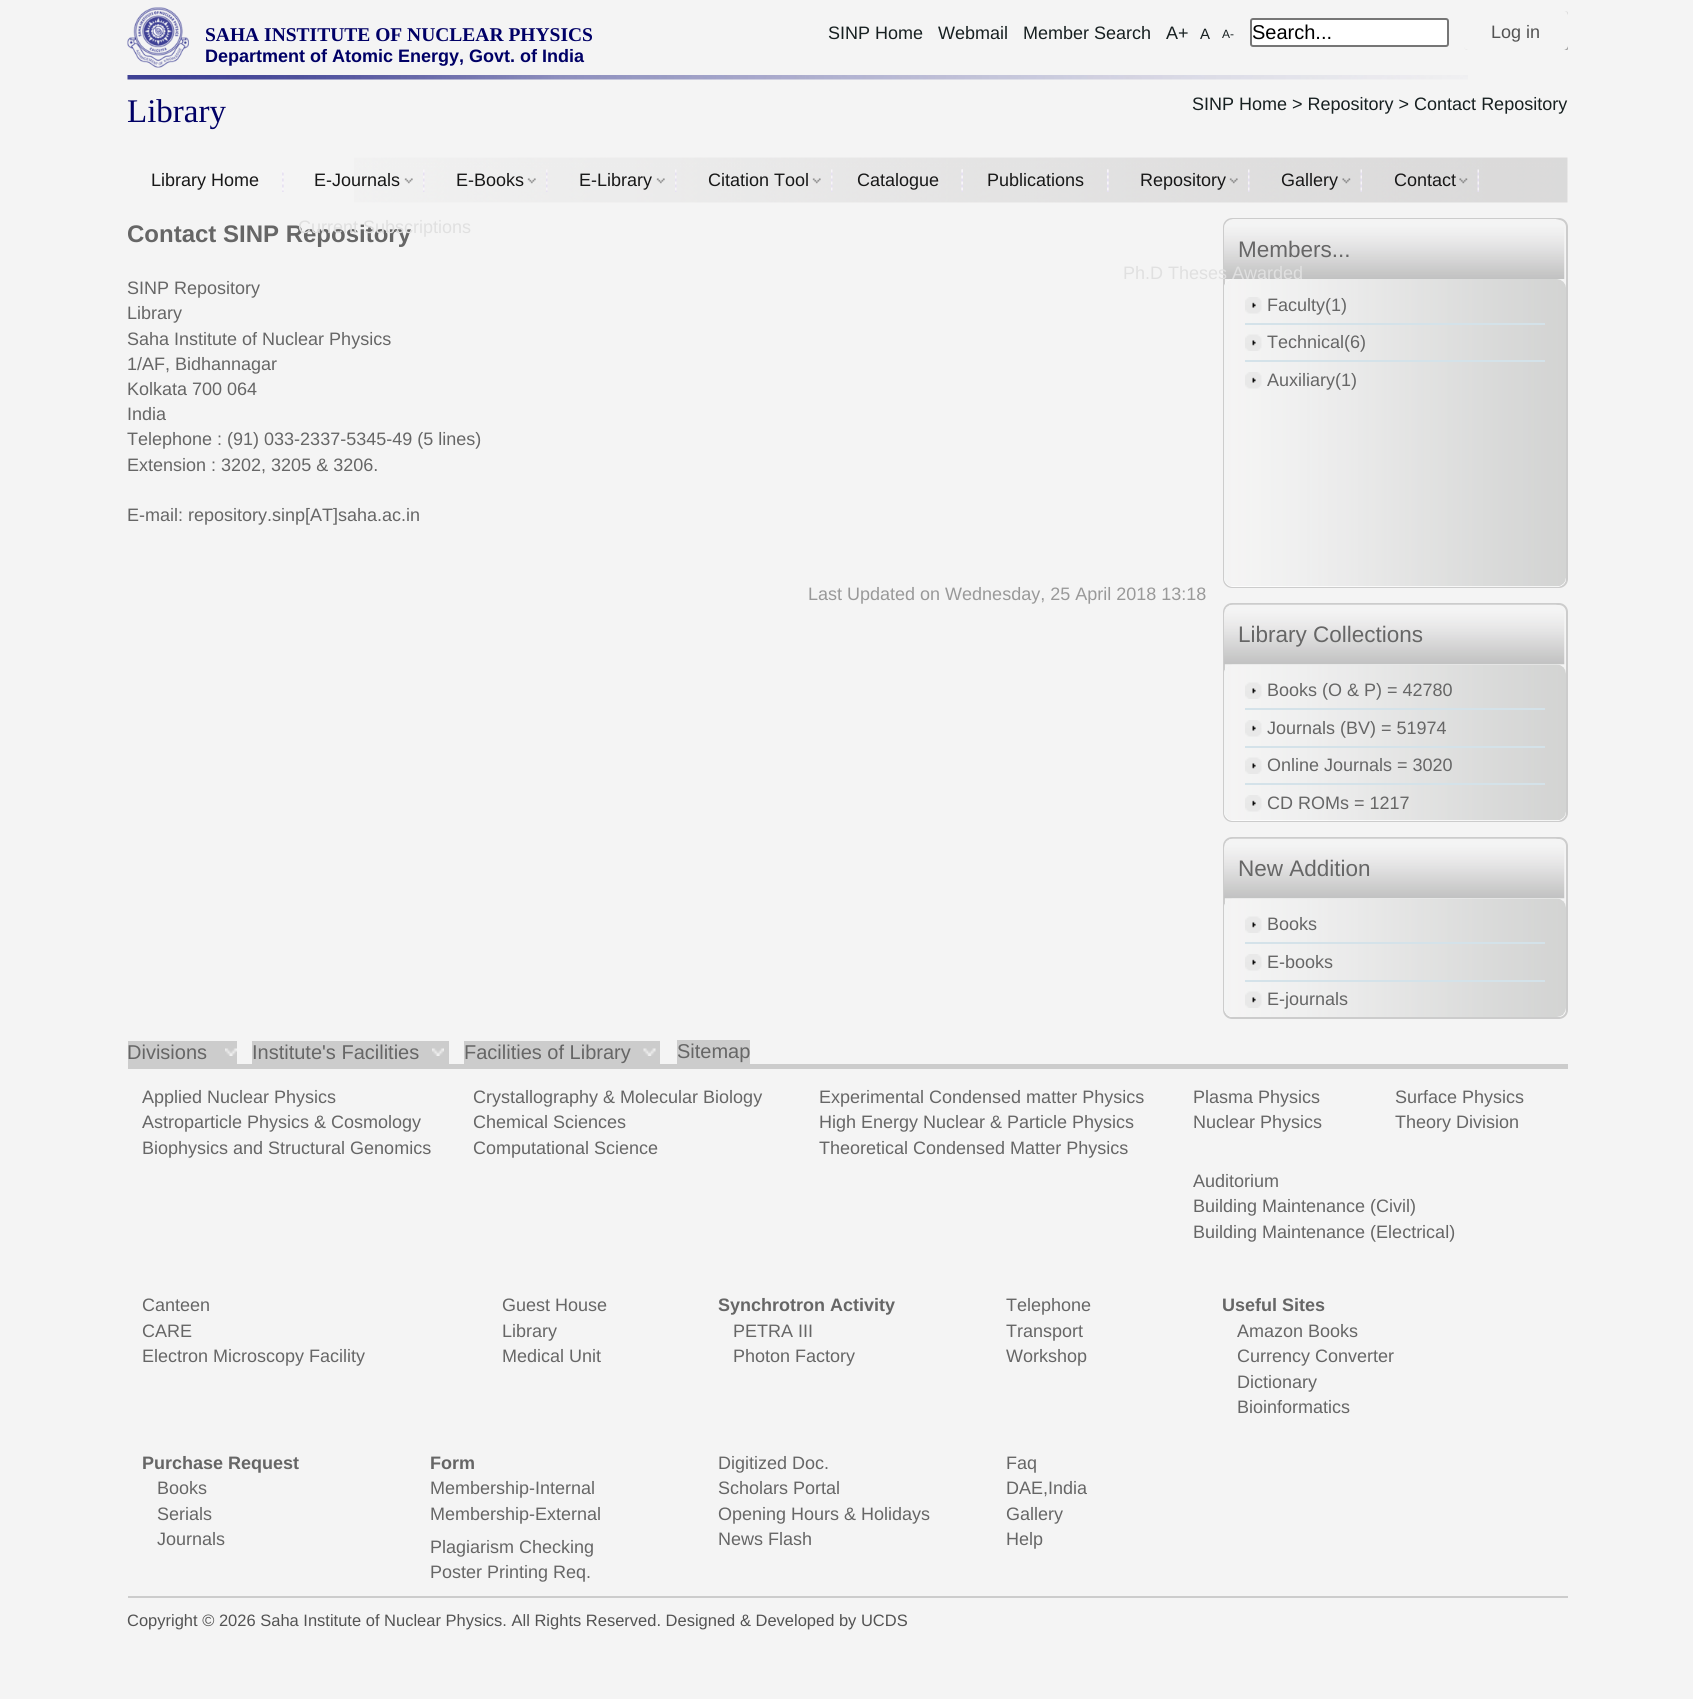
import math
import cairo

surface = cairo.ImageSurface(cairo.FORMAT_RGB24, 1693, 1699)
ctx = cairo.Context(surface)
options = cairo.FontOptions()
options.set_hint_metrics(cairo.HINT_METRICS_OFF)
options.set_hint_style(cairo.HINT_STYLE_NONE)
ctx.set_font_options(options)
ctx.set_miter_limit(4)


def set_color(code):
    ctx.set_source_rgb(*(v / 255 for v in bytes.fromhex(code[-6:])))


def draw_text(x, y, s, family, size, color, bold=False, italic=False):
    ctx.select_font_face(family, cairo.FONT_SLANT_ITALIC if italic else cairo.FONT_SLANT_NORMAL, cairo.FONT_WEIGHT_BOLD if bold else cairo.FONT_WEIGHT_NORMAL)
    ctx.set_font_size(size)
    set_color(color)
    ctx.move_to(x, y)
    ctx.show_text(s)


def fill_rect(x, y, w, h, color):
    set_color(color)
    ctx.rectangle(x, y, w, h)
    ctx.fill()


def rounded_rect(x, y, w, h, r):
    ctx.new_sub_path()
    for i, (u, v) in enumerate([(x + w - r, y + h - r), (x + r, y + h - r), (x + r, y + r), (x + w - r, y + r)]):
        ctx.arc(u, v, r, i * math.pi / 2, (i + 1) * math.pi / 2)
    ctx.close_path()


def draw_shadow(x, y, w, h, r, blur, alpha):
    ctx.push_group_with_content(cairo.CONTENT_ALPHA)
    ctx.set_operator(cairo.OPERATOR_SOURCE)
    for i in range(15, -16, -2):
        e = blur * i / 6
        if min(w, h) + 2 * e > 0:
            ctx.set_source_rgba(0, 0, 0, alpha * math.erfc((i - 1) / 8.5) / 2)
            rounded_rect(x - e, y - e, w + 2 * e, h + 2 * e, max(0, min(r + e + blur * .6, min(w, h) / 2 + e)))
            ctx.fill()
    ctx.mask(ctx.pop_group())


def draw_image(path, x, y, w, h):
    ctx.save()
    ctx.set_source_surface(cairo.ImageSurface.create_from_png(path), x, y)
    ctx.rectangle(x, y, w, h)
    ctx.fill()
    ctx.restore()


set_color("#f4f4f4")
ctx.paint()
draw_image("assets/img1.png", 127, 7, 62, 61)
draw_text(205, 41, "SAHA INSTITUTE OF NUCLEAR PHYSICS", "Liberation Serif", 19.5, "#000066", bold=True)
draw_text(205, 62, "Department of Atomic Energy, Govt. of India", "Liberation Sans", 18, "#000066", bold=True)
draw_text(828, 39, "SINP Home", "Liberation Sans", 18, "#172021")
draw_text(938, 39, "Webmail", "Liberation Sans", 18, "#172021")
draw_text(1023, 39, "Member Search", "Liberation Sans", 18, "#172021")
draw_text(1166, 39, "A+", "Liberation Sans", 18, "#172021")
draw_text(1200, 39, "A", "Liberation Sans", 15, "#172021")
draw_text(1222, 38, "A-", "Liberation Sans", 12, "#172021")
set_color("#ffffff")
rounded_rect(1251, 19, 197, 27, 2)
ctx.fill_preserve()
set_color("#767676")
ctx.stroke()
draw_text(1252, 39, "Search...", "Liberation Sans", 20, "#000000")
ctx.save()
ctx.rectangle(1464, 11, 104, 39)
ctx.clip()
ctx.set_fill_rule(cairo.FILL_RULE_EVEN_ODD)
ctx.new_path()
ctx.move_to(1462, 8)
ctx.line_to(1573, 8)
ctx.line_to(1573, 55)
ctx.line_to(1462, 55)
ctx.close_path()
ctx.move_to(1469, 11)
ctx.line_to(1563, 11)
ctx.curve_to(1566, 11, 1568, 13, 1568, 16)
ctx.line_to(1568, 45)
ctx.curve_to(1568, 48, 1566, 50, 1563, 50)
ctx.line_to(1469, 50)
ctx.curve_to(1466, 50, 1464, 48, 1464, 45)
ctx.line_to(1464, 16)
ctx.curve_to(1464, 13, 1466, 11, 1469, 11)
ctx.close_path()
ctx.clip()
set_color("#000000")
draw_shadow(1466, 12, 103, 39, 5, 1, 0.5)
ctx.restore()
draw_text(1491, 38, "Log in", "Liberation Sans", 18, "#535353")
draw_image("assets/img2.png", 127, 75, 1341, 5)
draw_text(127, 122, "Library", "Liberation Serif", 33, "#000066")
draw_text(1192, 110, "SINP Home > Repository > Contact Repository", "Liberation Sans", 18, "#172021")
draw_image("assets/img3.png", 354, 157, 1214, 46)
draw_image("assets/img4.png", 282, 170, 2, 22)
draw_text(151, 186, "Library Home", "Liberation Sans", 18, "#181818")
draw_image("assets/img5.png", 283, 173, 1, 19)
draw_image("assets/img6.png", 404, 178, 9, 6)
draw_text(314, 186, "E-Journals", "Liberation Sans", 18, "#181818")
draw_image("assets/img7.png", 423, 169, 2, 23)
draw_text(127, 242, "Contact SINP Repository", "Liberation Sans", 24, "#666666", bold=True)
draw_text(298, 233, "Current Subscriptions", "Liberation Sans", 18, "#e0e0e0")
draw_image("assets/img8.png", 527, 178, 9, 6)
draw_text(456, 186, "E-Books", "Liberation Sans", 18, "#181818")
draw_image("assets/img9.png", 546, 169, 2, 23)
draw_image("assets/img10.png", 656, 178, 9, 6)
draw_text(579, 186, "E-Library", "Liberation Sans", 18, "#181818")
draw_image("assets/img11.png", 675, 169, 2, 23)
draw_image("assets/img12.png", 812, 178, 9, 6)
draw_text(708, 186, "Citation Tool", "Liberation Sans", 18, "#181818")
draw_image("assets/img13.png", 831, 169, 2, 23)
draw_image("assets/img14.png", 961, 169, 2, 23)
draw_text(857, 186, "Catalogue", "Liberation Sans", 18, "#181818")
draw_image("assets/img15.png", 961, 169, 2, 21)
draw_image("assets/img16.png", 1107, 169, 2, 23)
draw_text(987, 186, "Publications", "Liberation Sans", 18, "#181818")
draw_image("assets/img17.png", 1107, 169, 2, 23)
draw_image("assets/img18.png", 1229, 178, 9, 6)
draw_text(1140, 186, "Repository", "Liberation Sans", 18, "#181818")
draw_image("assets/img19.png", 1248, 169, 2, 23)
rounded_rect(1224, 219, 343, 368, 8)
set_color("#cccccc")
ctx.stroke()
draw_image("assets/img24.png", 1224, 219, 341, 60)
set_color("#ffffff")
rounded_rect(1224, 279, 342, 308, 9)
ctx.fill()
draw_image("assets/img25.png", 1224, 279, 342, 308)
draw_text(1123, 279, "Ph.D Theses Awarded", "Liberation Sans", 18, "#e0e0e0")
draw_image("assets/img20.png", 1342, 178, 9, 6)
draw_text(1281, 186, "Gallery", "Liberation Sans", 18, "#181818")
draw_image("assets/img21.png", 1360, 169, 2, 23)
draw_image("assets/img22.png", 1459, 178, 9, 6)
draw_text(1394, 186, "Contact", "Liberation Sans", 18, "#181818")
draw_image("assets/img23.png", 1477, 169, 2, 23)
draw_text(127, 294, "SINP Repository", "Liberation Sans", 18, "#666666")
draw_text(127, 319, "Library", "Liberation Sans", 18, "#666666")
draw_text(127, 345, "Saha Institute of Nuclear Physics", "Liberation Sans", 18, "#666666")
draw_text(127, 370, "1/AF, Bidhannagar", "Liberation Sans", 18, "#666666")
draw_text(127, 395, "Kolkata 700 064", "Liberation Sans", 18, "#666666")
draw_text(127, 420, "India", "Liberation Sans", 18, "#666666")
draw_text(127, 445, "Telephone : (91) 033-2337-5345-49 (5 lines)", "Liberation Sans", 18, "#666666")
draw_text(127, 471, "Extension : 3202, 3205 & 3206.", "Liberation Sans", 18, "#666666")
draw_text(127, 521, "E-mail: repository.sinp[AT]saha.ac.in", "Liberation Sans", 18, "#666666")
draw_text(808, 600, "Last Updated on Wednesday, 25 April 2018 13:18", "Liberation Sans", 18, "#999999")
draw_text(1238, 257, "Members...", "Liberation Sans", 22.5, "#666666")
draw_image("assets/img26.png", 1245, 297, 17, 17)
draw_text(1267, 311, "Faculty(1)", "Liberation Sans", 18, "#666666")
draw_image("assets/img27.png", 1245, 334, 17, 17)
fill_rect(1245, 323, 300, 2, "#d4e2e9")
draw_text(1267, 348, "Technical(6)", "Liberation Sans", 18, "#666666")
draw_image("assets/img26.png", 1245, 372, 17, 17)
fill_rect(1245, 360, 300, 2, "#d4e2e9")
draw_text(1267, 386, "Auxiliary(1)", "Liberation Sans", 18, "#666666")
rounded_rect(1224, 604, 343, 217, 8)
set_color("#cccccc")
ctx.stroke()
draw_image("assets/img28.png", 1224, 604, 341, 61)
draw_text(1238, 642, "Library Collections", "Liberation Sans", 22.5, "#666666")
set_color("#ffffff")
rounded_rect(1224, 665, 342, 156, 9)
ctx.fill()
draw_image("assets/img29.png", 1224, 664, 342, 157)
draw_image("assets/img27.png", 1245, 682, 17, 17)
draw_text(1267, 696, "Books (O & P) = 42780", "Liberation Sans", 18, "#666666")
draw_image("assets/img26.png", 1245, 720, 17, 17)
fill_rect(1245, 708, 300, 2, "#d4e2e9")
draw_text(1267, 734, "Journals (BV) = 51974", "Liberation Sans", 18, "#666666")
draw_image("assets/img27.png", 1245, 757, 17, 17)
fill_rect(1245, 746, 300, 2, "#d4e2e9")
draw_text(1267, 771, "Online Journals = 3020", "Liberation Sans", 18, "#666666")
draw_image("assets/img26.png", 1245, 795, 17, 17)
fill_rect(1245, 783, 300, 2, "#d4e2e9")
draw_text(1267, 809, "CD ROMs = 1217", "Liberation Sans", 18, "#666666")
rounded_rect(1224, 838, 343, 180, 8)
set_color("#cccccc")
ctx.stroke()
draw_image("assets/img28.png", 1224, 838, 341, 61)
draw_text(1238, 876, "New Addition", "Liberation Sans", 22.5, "#666666")
set_color("#ffffff")
rounded_rect(1224, 899, 342, 118, 9)
ctx.fill()
draw_image("assets/img30.png", 1224, 898, 342, 119)
draw_image("assets/img27.png", 1245, 916, 17, 17)
draw_text(1267, 930, "Books", "Liberation Sans", 18, "#666666")
draw_image("assets/img26.png", 1245, 954, 17, 17)
fill_rect(1245, 942, 300, 2, "#d4e2e9")
draw_text(1267, 968, "E-books", "Liberation Sans", 18, "#666666")
draw_image("assets/img27.png", 1245, 991, 17, 17)
fill_rect(1245, 980, 300, 2, "#d4e2e9")
draw_text(1267, 1005, "E-journals", "Liberation Sans", 18, "#666666")
fill_rect(128, 1041, 109, 23, "#cccccc")
draw_image("assets/img31.png", 225, 1048, 12, 8)
draw_text(127, 1059, "Divisions", "Liberation Sans", 20, "#666666")
fill_rect(252, 1041, 197, 23, "#cccccc")
draw_image("assets/img32.png", 432, 1048, 12, 8)
draw_text(252, 1059, "Institute's Facilities", "Liberation Sans", 20, "#666666")
fill_rect(464, 1041, 196, 23, "#cccccc")
draw_image("assets/img33.png", 643, 1048, 13, 8)
draw_text(464, 1059, "Facilities of Library", "Liberation Sans", 20, "#666666")
fill_rect(677, 1040, 73, 24, "#cccccc")
draw_text(677, 1058, "Sitemap", "Liberation Sans", 20, "#666666")
fill_rect(128, 1064, 1440, 5, "#cccccc")
draw_text(142, 1103, "Applied Nuclear Physics", "Liberation Sans", 18, "#666666")
draw_text(142, 1128, "Astroparticle Physics & Cosmology", "Liberation Sans", 18, "#666666")
draw_text(142, 1154, "Biophysics and Structural Genomics", "Liberation Sans", 18, "#666666")
draw_text(473, 1103, "Crystallography & Molecular Biology", "Liberation Sans", 18, "#666666")
draw_text(473, 1128, "Chemical Sciences", "Liberation Sans", 18, "#666666")
draw_text(473, 1154, "Computational Science", "Liberation Sans", 18, "#666666")
draw_text(819, 1103, "Experimental Condensed matter Physics", "Liberation Sans", 18, "#666666")
draw_text(819, 1128, "High Energy Nuclear & Particle Physics", "Liberation Sans", 18, "#666666")
draw_text(819, 1154, "Theoretical Condensed Matter Physics", "Liberation Sans", 18, "#666666")
draw_text(1193, 1103, "Plasma Physics", "Liberation Sans", 18, "#666666")
draw_text(1193, 1128, "Nuclear Physics", "Liberation Sans", 18, "#666666")
draw_text(1395, 1103, "Surface Physics", "Liberation Sans", 18, "#666666")
draw_text(1395, 1128, "Theory Division", "Liberation Sans", 18, "#666666")
draw_text(1193, 1187, "Auditorium", "Liberation Sans", 18, "#666666")
draw_text(1193, 1212, "Building Maintenance (Civil)", "Liberation Sans", 18, "#666666")
draw_text(1193, 1238, "Building Maintenance (Electrical)", "Liberation Sans", 18, "#666666")
draw_text(142, 1311, "Canteen", "Liberation Sans", 18, "#666666")
draw_text(142, 1337, "CARE", "Liberation Sans", 18, "#666666")
draw_text(142, 1362, "Electron Microscopy Facility", "Liberation Sans", 18, "#666666")
draw_text(502, 1311, "Guest House", "Liberation Sans", 18, "#666666")
draw_text(502, 1337, "Library", "Liberation Sans", 18, "#666666")
draw_text(502, 1362, "Medical Unit", "Liberation Sans", 18, "#666666")
draw_text(718, 1311, "Synchrotron Activity", "Liberation Sans", 18, "#666666", bold=True)
draw_text(733, 1337, "PETRA III", "Liberation Sans", 18, "#666666")
draw_text(733, 1362, "Photon Factory", "Liberation Sans", 18, "#666666")
draw_text(1006, 1311, "Telephone", "Liberation Sans", 18, "#666666")
draw_text(1006, 1337, "Transport", "Liberation Sans", 18, "#666666")
draw_text(1006, 1362, "Workshop", "Liberation Sans", 18, "#666666")
draw_text(1222, 1311, "Useful Sites", "Liberation Sans", 18, "#666666", bold=True)
draw_text(1237, 1337, "Amazon Books", "Liberation Sans", 18, "#666666")
draw_text(1237, 1362, "Currency Converter", "Liberation Sans", 18, "#666666")
draw_text(1237, 1388, "Dictionary", "Liberation Sans", 18, "#666666")
draw_text(1237, 1413, "Bioinformatics", "Liberation Sans", 18, "#666666")
draw_text(142, 1469, "Purchase Request", "Liberation Sans", 18, "#666666", bold=True)
draw_text(157, 1494, "Books", "Liberation Sans", 18, "#666666")
draw_text(157, 1520, "Serials", "Liberation Sans", 18, "#666666")
draw_text(157, 1545, "Journals", "Liberation Sans", 18, "#666666")
draw_text(430, 1469, "Form", "Liberation Sans", 18, "#666666", bold=True)
draw_text(430, 1494, "Membership-Internal", "Liberation Sans", 18, "#666666")
draw_text(430, 1520, "Membership-External", "Liberation Sans", 18, "#666666")
draw_text(430, 1553, "Plagiarism Checking", "Liberation Sans", 18, "#666666")
draw_text(430, 1578, "Poster Printing Req.", "Liberation Sans", 18, "#666666")
draw_text(718, 1469, "Digitized Doc.", "Liberation Sans", 18, "#666666")
draw_text(718, 1494, "Scholars Portal", "Liberation Sans", 18, "#666666")
draw_text(718, 1520, "Opening Hours & Holidays", "Liberation Sans", 18, "#666666")
draw_text(718, 1545, "News Flash", "Liberation Sans", 18, "#666666")
draw_text(1006, 1469, "Faq", "Liberation Sans", 18, "#666666")
draw_text(1006, 1494, "DAE,India", "Liberation Sans", 18, "#666666")
draw_text(1006, 1520, "Gallery", "Liberation Sans", 18, "#666666")
draw_text(1006, 1545, "Help", "Liberation Sans", 18, "#666666")
fill_rect(128, 1596, 1440, 2, "#cccccc")
draw_text(127, 1626, "Copyright © 2026 Saha Institute of Nuclear Physics. All Rights Reserved. Designed & Developed by UCDS", "Liberation Sans", 16.5, "#535353")
surface.write_to_png("output.png")
